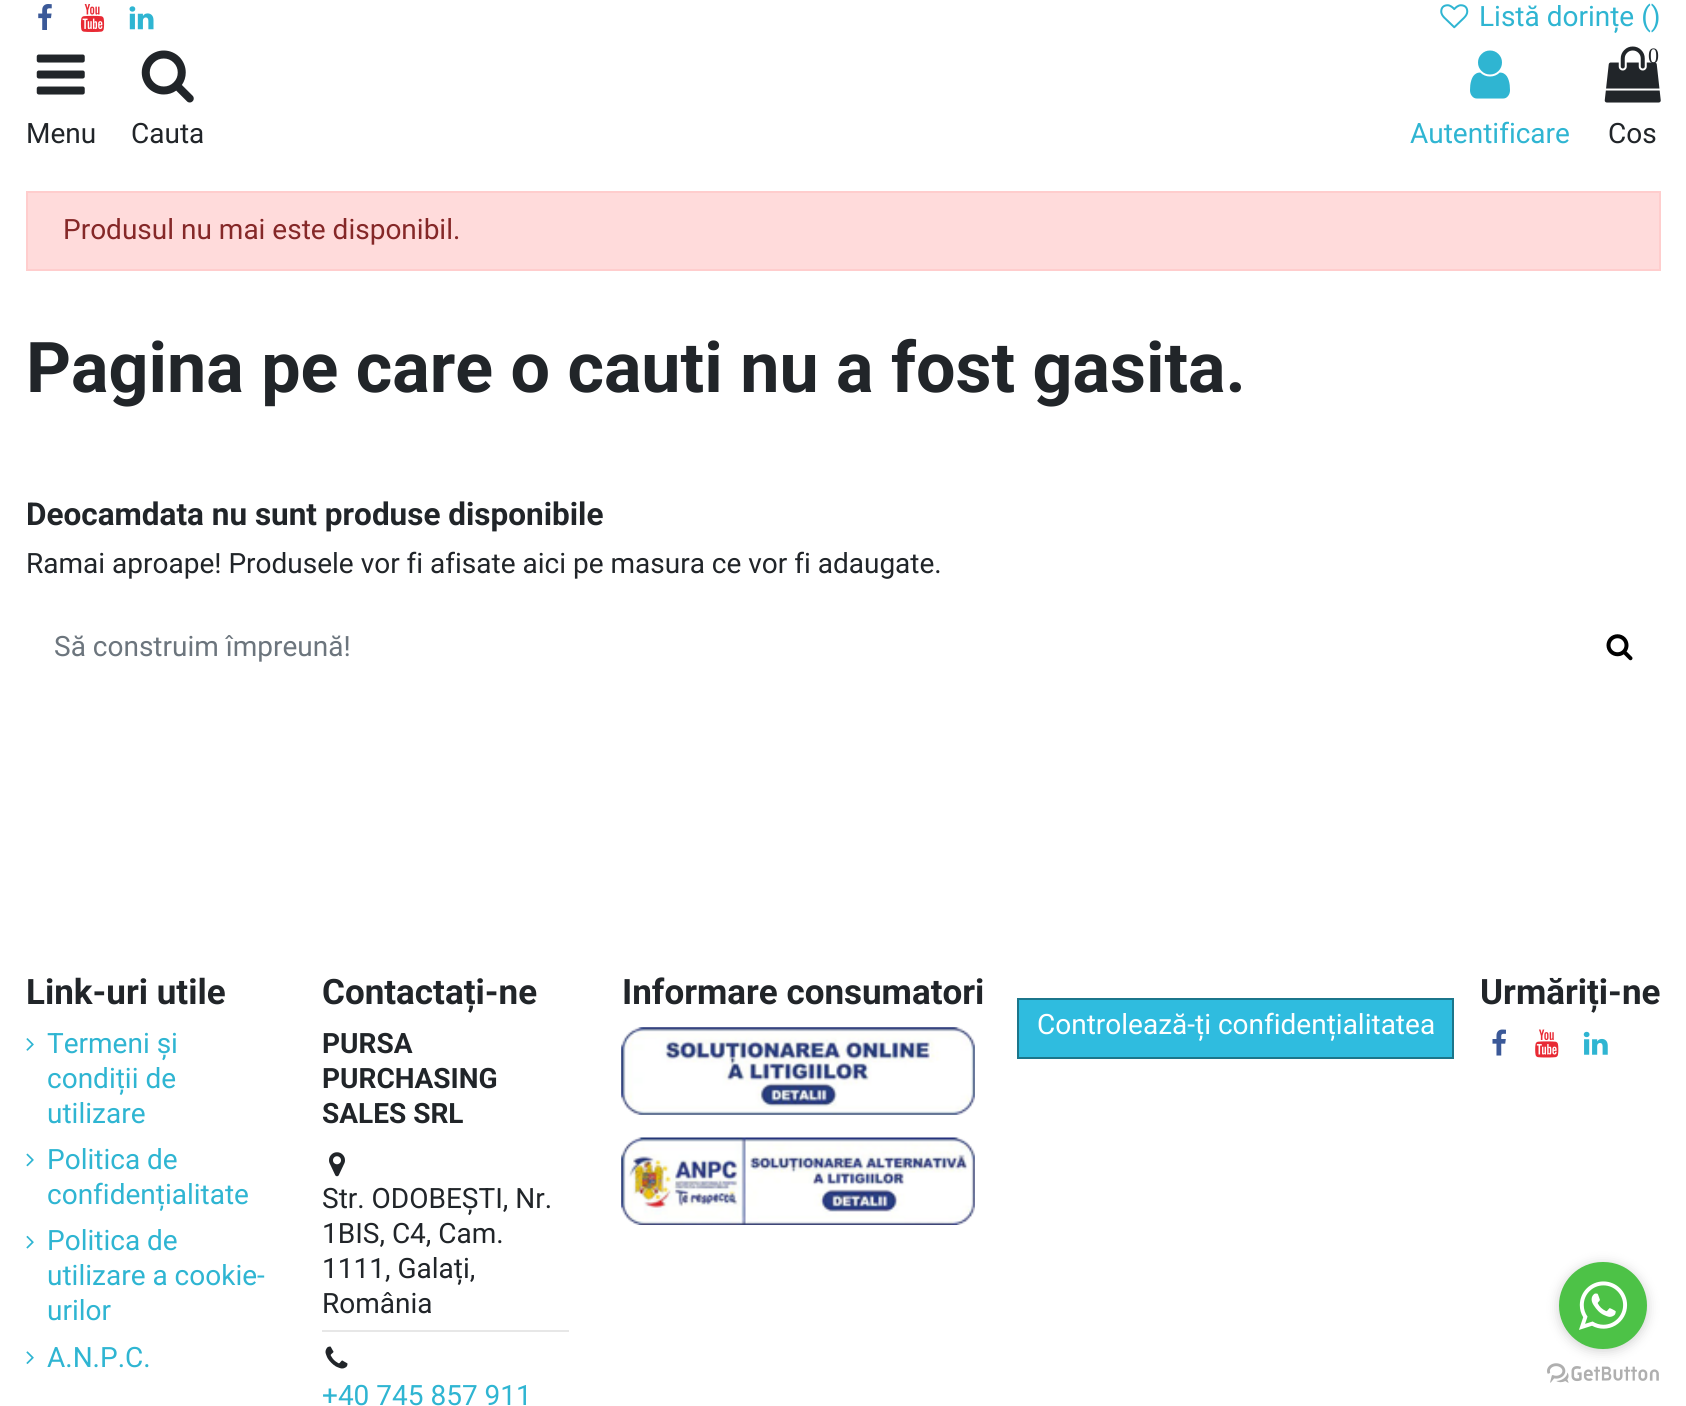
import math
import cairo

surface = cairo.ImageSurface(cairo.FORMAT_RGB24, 1686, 1406)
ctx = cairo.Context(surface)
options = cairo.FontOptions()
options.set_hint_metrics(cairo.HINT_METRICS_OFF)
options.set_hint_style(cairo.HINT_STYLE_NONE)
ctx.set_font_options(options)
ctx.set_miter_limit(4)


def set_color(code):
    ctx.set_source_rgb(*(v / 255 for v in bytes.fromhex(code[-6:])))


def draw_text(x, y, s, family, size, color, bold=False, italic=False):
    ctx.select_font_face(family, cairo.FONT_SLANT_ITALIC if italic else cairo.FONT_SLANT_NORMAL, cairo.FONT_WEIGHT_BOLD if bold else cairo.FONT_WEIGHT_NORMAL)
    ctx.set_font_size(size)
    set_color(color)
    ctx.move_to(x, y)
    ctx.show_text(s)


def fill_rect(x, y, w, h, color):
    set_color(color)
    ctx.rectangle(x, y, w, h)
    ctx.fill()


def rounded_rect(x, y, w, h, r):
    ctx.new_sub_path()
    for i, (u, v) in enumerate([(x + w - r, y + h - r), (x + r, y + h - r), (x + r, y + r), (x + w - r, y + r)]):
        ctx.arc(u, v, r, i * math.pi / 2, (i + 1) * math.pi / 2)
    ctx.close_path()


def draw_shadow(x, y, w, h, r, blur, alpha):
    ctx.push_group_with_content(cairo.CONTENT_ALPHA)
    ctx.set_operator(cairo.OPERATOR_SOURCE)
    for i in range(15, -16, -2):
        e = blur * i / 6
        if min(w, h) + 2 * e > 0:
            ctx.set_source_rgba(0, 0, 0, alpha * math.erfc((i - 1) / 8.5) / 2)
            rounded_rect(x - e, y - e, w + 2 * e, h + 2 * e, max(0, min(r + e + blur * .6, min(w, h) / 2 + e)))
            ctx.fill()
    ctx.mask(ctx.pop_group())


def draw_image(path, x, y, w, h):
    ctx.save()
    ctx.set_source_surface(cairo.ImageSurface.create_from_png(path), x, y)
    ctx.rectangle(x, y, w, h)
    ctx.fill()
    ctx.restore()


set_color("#ffffff")
ctx.paint()
draw_image("assets/img1.png", 38, 4, 14, 26)
draw_image("assets/img2.png", 80, 4, 25, 28)
draw_image("assets/img3.png", 129, 6, 25, 24)
draw_image("assets/img4.png", 1440, 4, 29, 25)
draw_text(1479, 26, "Listă dorințe ()", "Roboto", 28, "#2fb5d2")
draw_image("assets/img5.png", 36, 54, 49, 41)
draw_text(26, 143, "Menu", "Roboto", 28, "#212529")
draw_image("assets/img6.png", 141, 50, 53, 53)
draw_text(131, 143, "Cauta", "Roboto", 28, "#212529")
draw_image("assets/img7.png", 1470, 50, 40, 49)
draw_text(1410, 143, "Autentificare", "Roboto", 28, "#2fb5d2")
draw_image("assets/img8.png", 1604, 46, 57, 57)
draw_text(1648, 63, "0", "Liberation Serif", 22, "#212529")
draw_text(1608, 143, "Cos", "Roboto", 28, "#212529")
set_color("#ffdbdb")
ctx.rectangle(27, 192, 1633, 78)
ctx.fill_preserve()
set_color("#ffcdcd")
ctx.stroke()
draw_text(63, 239, "Produsul nu mai este disponibil.", "Roboto", 28, "#852828")
draw_text(26, 392, "Pagina pe care o cauti nu a fost gasita.", "Roboto", 70, "#212529", bold=True)
draw_text(26, 525, "Deocamdata nu sunt produse disponibile", "Roboto", 31.5, "#212529", bold=True)
draw_text(26, 573, "Ramai aproape! Produsele vor fi afisate aici pe masura ce vor fi adaugate.", "Roboto", 28, "#212529")
draw_text(54, 656, "Să construim împreună!", "Roboto", 28, "#6c757d")
draw_image("assets/img9.png", 1606, 634, 27, 27)
draw_text(26, 1004, "Link-uri utile", "Roboto", 35, "#212529", bold=True)
draw_image("assets/img10.png", 26, 1038, 8, 13)
draw_text(47, 1053, "Termeni și", "Roboto", 28, "#2fb5d2")
draw_text(47, 1088, "condiții de", "Roboto", 28, "#2fb5d2")
draw_text(47, 1123, "utilizare", "Roboto", 28, "#2fb5d2")
draw_image("assets/img11.png", 26, 1153, 8, 14)
draw_text(47, 1169, "Politica de", "Roboto", 28, "#2fb5d2")
draw_text(47, 1204, "confidențialitate", "Roboto", 28, "#2fb5d2")
draw_image("assets/img12.png", 26, 1235, 8, 14)
draw_text(47, 1250, "Politica de", "Roboto", 28, "#2fb5d2")
draw_text(47, 1285, "utilizare a cookie-", "Roboto", 28, "#2fb5d2")
draw_text(47, 1320, "urilor", "Roboto", 28, "#2fb5d2")
draw_image("assets/img13.png", 26, 1351, 8, 13)
draw_text(47, 1367, "A.N.P.C.", "Roboto", 28, "#2fb5d2")
draw_text(322, 1004, "Contactați-ne", "Roboto", 35, "#212529", bold=True)
draw_text(322, 1053, "PURSA", "Roboto", 28, "#212529", bold=True)
draw_text(322, 1088, "PURCHASING", "Roboto", 28, "#212529", bold=True)
draw_text(322, 1123, "SALES SRL", "Roboto", 28, "#212529", bold=True)
draw_image("assets/img14.png", 329, 1152, 16, 25)
draw_text(322, 1208, "Str. ODOBEȘTI, Nr.", "Roboto", 28, "#212529")
draw_text(322, 1243, "1BIS, C4, Cam.", "Roboto", 28, "#212529")
draw_text(322, 1278, "1111, Galați,", "Roboto", 28, "#212529")
draw_text(322, 1313, "România", "Roboto", 28, "#212529")
fill_rect(322, 1330, 247, 2, "#e7e7e7")
draw_image("assets/img15.png", 325, 1346, 23, 23)
draw_text(322, 1405, "+40 745 857 911", "Roboto", 28, "#2fb5d2")
draw_text(622, 1004, "Informare consumatori", "Roboto", 35, "#212529", bold=True)
draw_image("assets/img16.png", 621, 1027, 354, 88)
draw_image("assets/img17.png", 621, 1137, 354, 88)
set_color("#2fbcdf")
ctx.rectangle(1018, 999, 435, 59)
ctx.fill_preserve()
set_color("#1b768b")
ctx.stroke()
draw_text(1037, 1034, "Controlează-ți confidențialitatea", "Roboto", 28, "#ffffff")
draw_text(1480, 1004, "Urmăriți-ne", "Roboto", 35, "#212529", bold=True)
draw_image("assets/img18.png", 1492, 1029, 14, 27)
draw_image("assets/img19.png", 1535, 1029, 24, 29)
draw_image("assets/img20.png", 1583, 1031, 25, 24)
draw_image("assets/img22.png", 1547, 1363, 112, 20)
set_color("#888888")
draw_shadow(1559, 1264, 88, 87, 43.5, 6, 0.4)
set_color("#4dc247")
rounded_rect(1559, 1262, 88, 87, 43.5)
ctx.fill()
draw_image("assets/img21.png", 1579, 1281, 49, 49)
surface.write_to_png("output.png")
